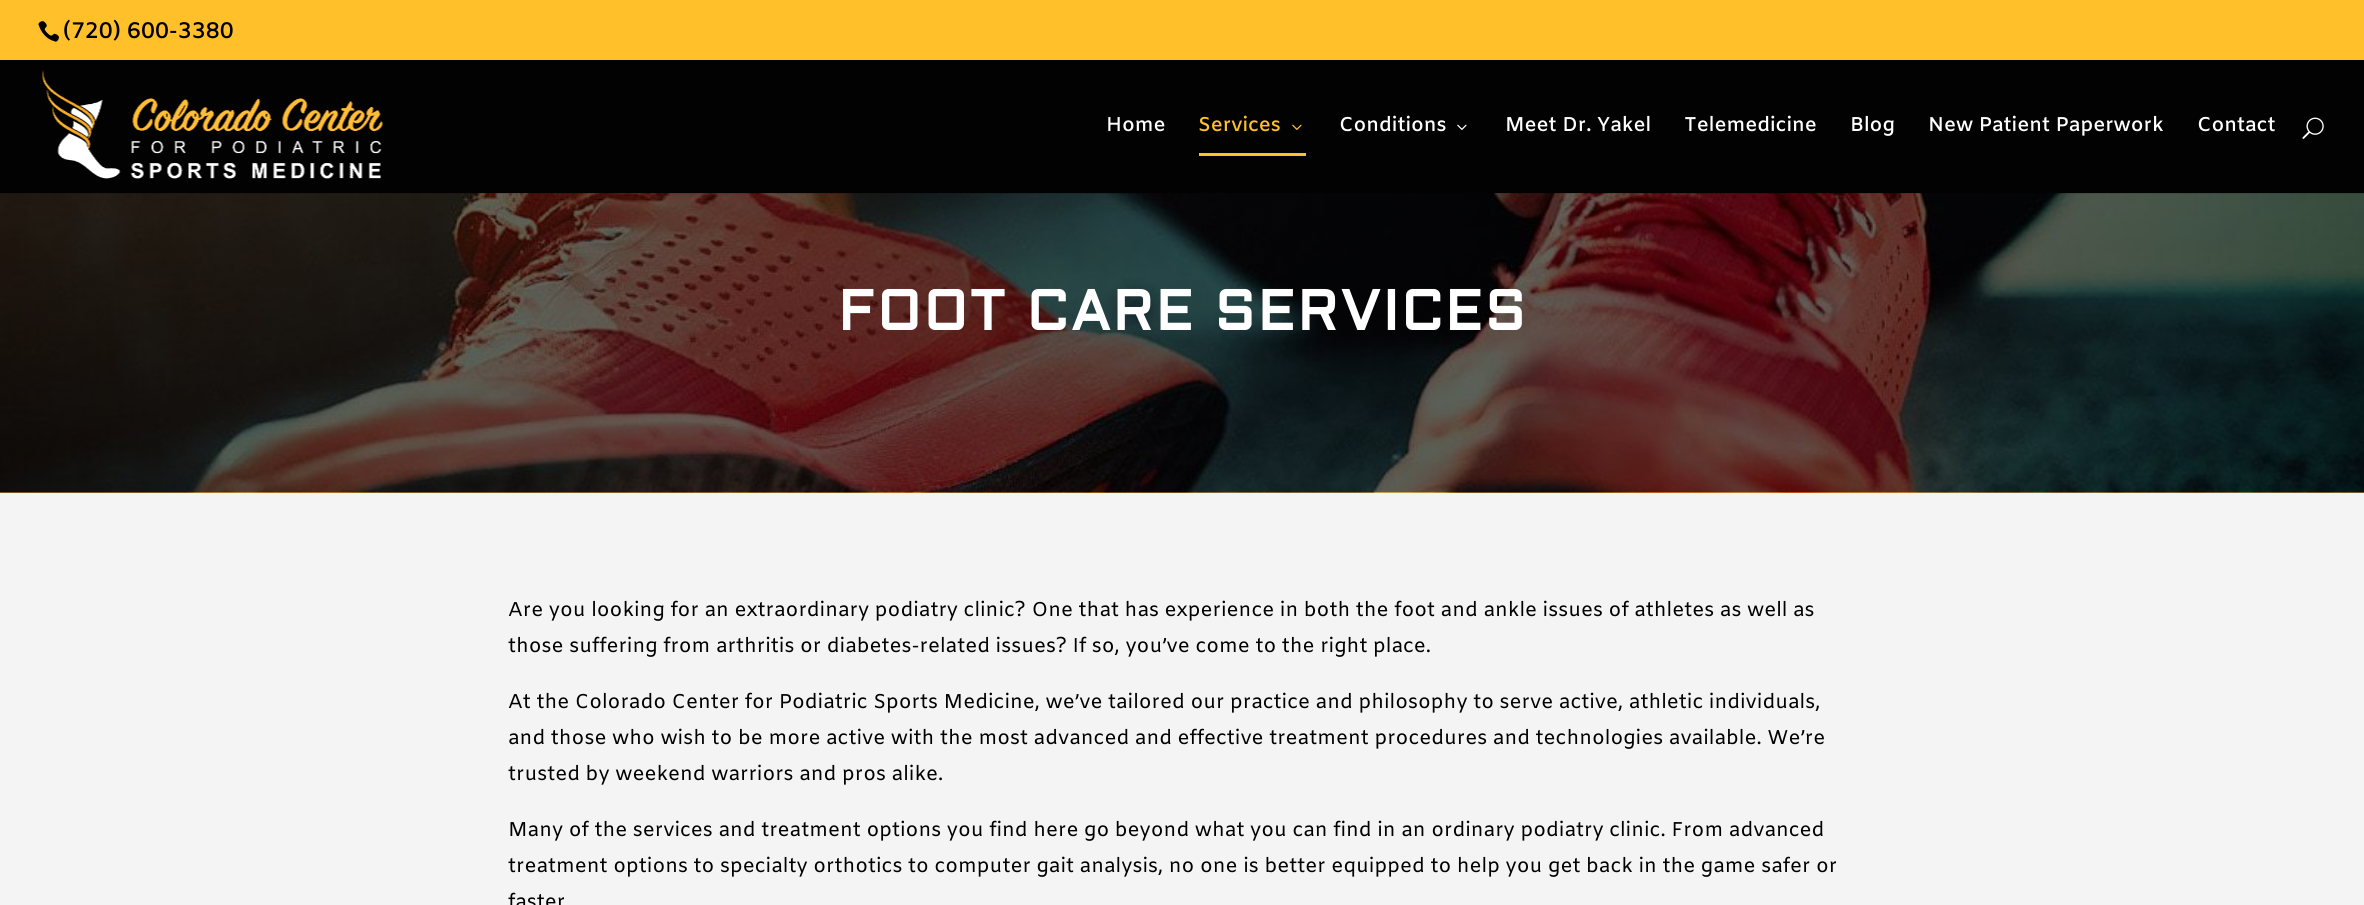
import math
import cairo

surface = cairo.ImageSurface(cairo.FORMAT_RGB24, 2364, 905)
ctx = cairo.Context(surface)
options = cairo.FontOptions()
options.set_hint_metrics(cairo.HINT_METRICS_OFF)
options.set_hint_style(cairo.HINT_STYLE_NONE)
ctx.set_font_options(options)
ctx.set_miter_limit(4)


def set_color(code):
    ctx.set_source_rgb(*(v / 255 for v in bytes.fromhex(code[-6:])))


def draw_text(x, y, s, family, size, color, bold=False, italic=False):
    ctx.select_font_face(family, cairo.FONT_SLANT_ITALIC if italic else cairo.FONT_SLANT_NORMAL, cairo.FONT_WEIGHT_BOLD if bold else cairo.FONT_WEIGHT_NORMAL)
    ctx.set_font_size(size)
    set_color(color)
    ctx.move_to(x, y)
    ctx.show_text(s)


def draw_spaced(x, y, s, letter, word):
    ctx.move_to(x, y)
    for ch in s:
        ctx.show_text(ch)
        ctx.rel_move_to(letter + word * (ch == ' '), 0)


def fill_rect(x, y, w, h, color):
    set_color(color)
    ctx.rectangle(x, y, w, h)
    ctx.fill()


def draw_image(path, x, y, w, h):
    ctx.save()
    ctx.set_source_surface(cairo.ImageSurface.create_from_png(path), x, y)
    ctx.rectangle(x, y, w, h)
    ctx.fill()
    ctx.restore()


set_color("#ffc029")
ctx.paint()
draw_image("assets/img1.png", 38, 21, 21, 21)
draw_text(63, 38, "(720) 600-3380", "Amiko SemiBold", 22.5, "#000000")
draw_image("assets/img6.png", 0, 193, 2364, 300)
ctx.set_source_rgba(0, 0, 0, 0.1)
ctx.rectangle(0, 193, 2364, 1)
ctx.fill()
fill_rect(0, 60, 2364, 133, "#020202")
draw_image("assets/img2.png", 42, 70, 341, 109)
draw_text(1106, 131, "Home", "Amiko SemiBold", 20, "#ffffff")
draw_text(1198, 131, "Services", "Amiko SemiBold", 20, "#ffc12a")
draw_image("assets/img3.png", 1292, 124, 10, 6)
fill_rect(1199, 153, 107, 3, "#ffc12a")
draw_text(1339, 131, "Conditions", "Amiko SemiBold", 20, "#ffffff")
draw_image("assets/img4.png", 1457, 124, 10, 6)
draw_text(1505, 131, "Meet Dr. Yakel", "Amiko SemiBold", 20, "#ffffff")
draw_text(1684, 131, "Telemedicine", "Amiko SemiBold", 20, "#ffffff")
draw_text(1850, 131, "Blog", "Amiko SemiBold", 20, "#ffffff")
draw_text(1928, 131, "New Patient Paperwork", "Amiko SemiBold", 20, "#ffffff")
draw_text(2197, 131, "Contact", "Amiko SemiBold", 20, "#ffffff")
draw_image("assets/img5.png", 2302, 117, 22, 22)
ctx.select_font_face("Aldrich", cairo.FONT_SLANT_NORMAL, cairo.FONT_WEIGHT_BOLD)
ctx.set_font_size(56.25)
draw_spaced(838, 330, "FOOT CARE SERVICES", 2.5, 0)
fill_rect(0, 493, 2364, 412, "#f4f4f4")
draw_text(508, 616, "Are you looking for an extraordinary podiatry clinic? One that has experience in both the foot and ankle issues of athletes as well as", "Amiko", 20, "#000000")
draw_text(508, 652, "those suffering from arthritis or diabetes-related issues? If so, you’ve come to the right place.", "Amiko", 20, "#000000")
draw_text(508, 708, "At the Colorado Center for Podiatric Sports Medicine, we’ve tailored our practice and philosophy to serve active, athletic individuals,", "Amiko", 20, "#000000")
draw_text(508, 744, "and those who wish to be more active with the most advanced and effective treatment procedures and technologies available. We’re", "Amiko", 20, "#000000")
draw_text(508, 780, "trusted by weekend warriors and pros alike.", "Amiko", 20, "#000000")
draw_text(508, 836, "Many of the services and treatment options you find here go beyond what you can find in an ordinary podiatry clinic. From advanced", "Amiko", 20, "#000000")
draw_text(508, 872, "treatment options to specialty orthotics to computer gait analysis, no one is better equipped to help you get back in the game safer or", "Amiko", 20, "#000000")
draw_text(508, 908, "faster", "Amiko", 20, "#000000")
surface.write_to_png("output.png")
